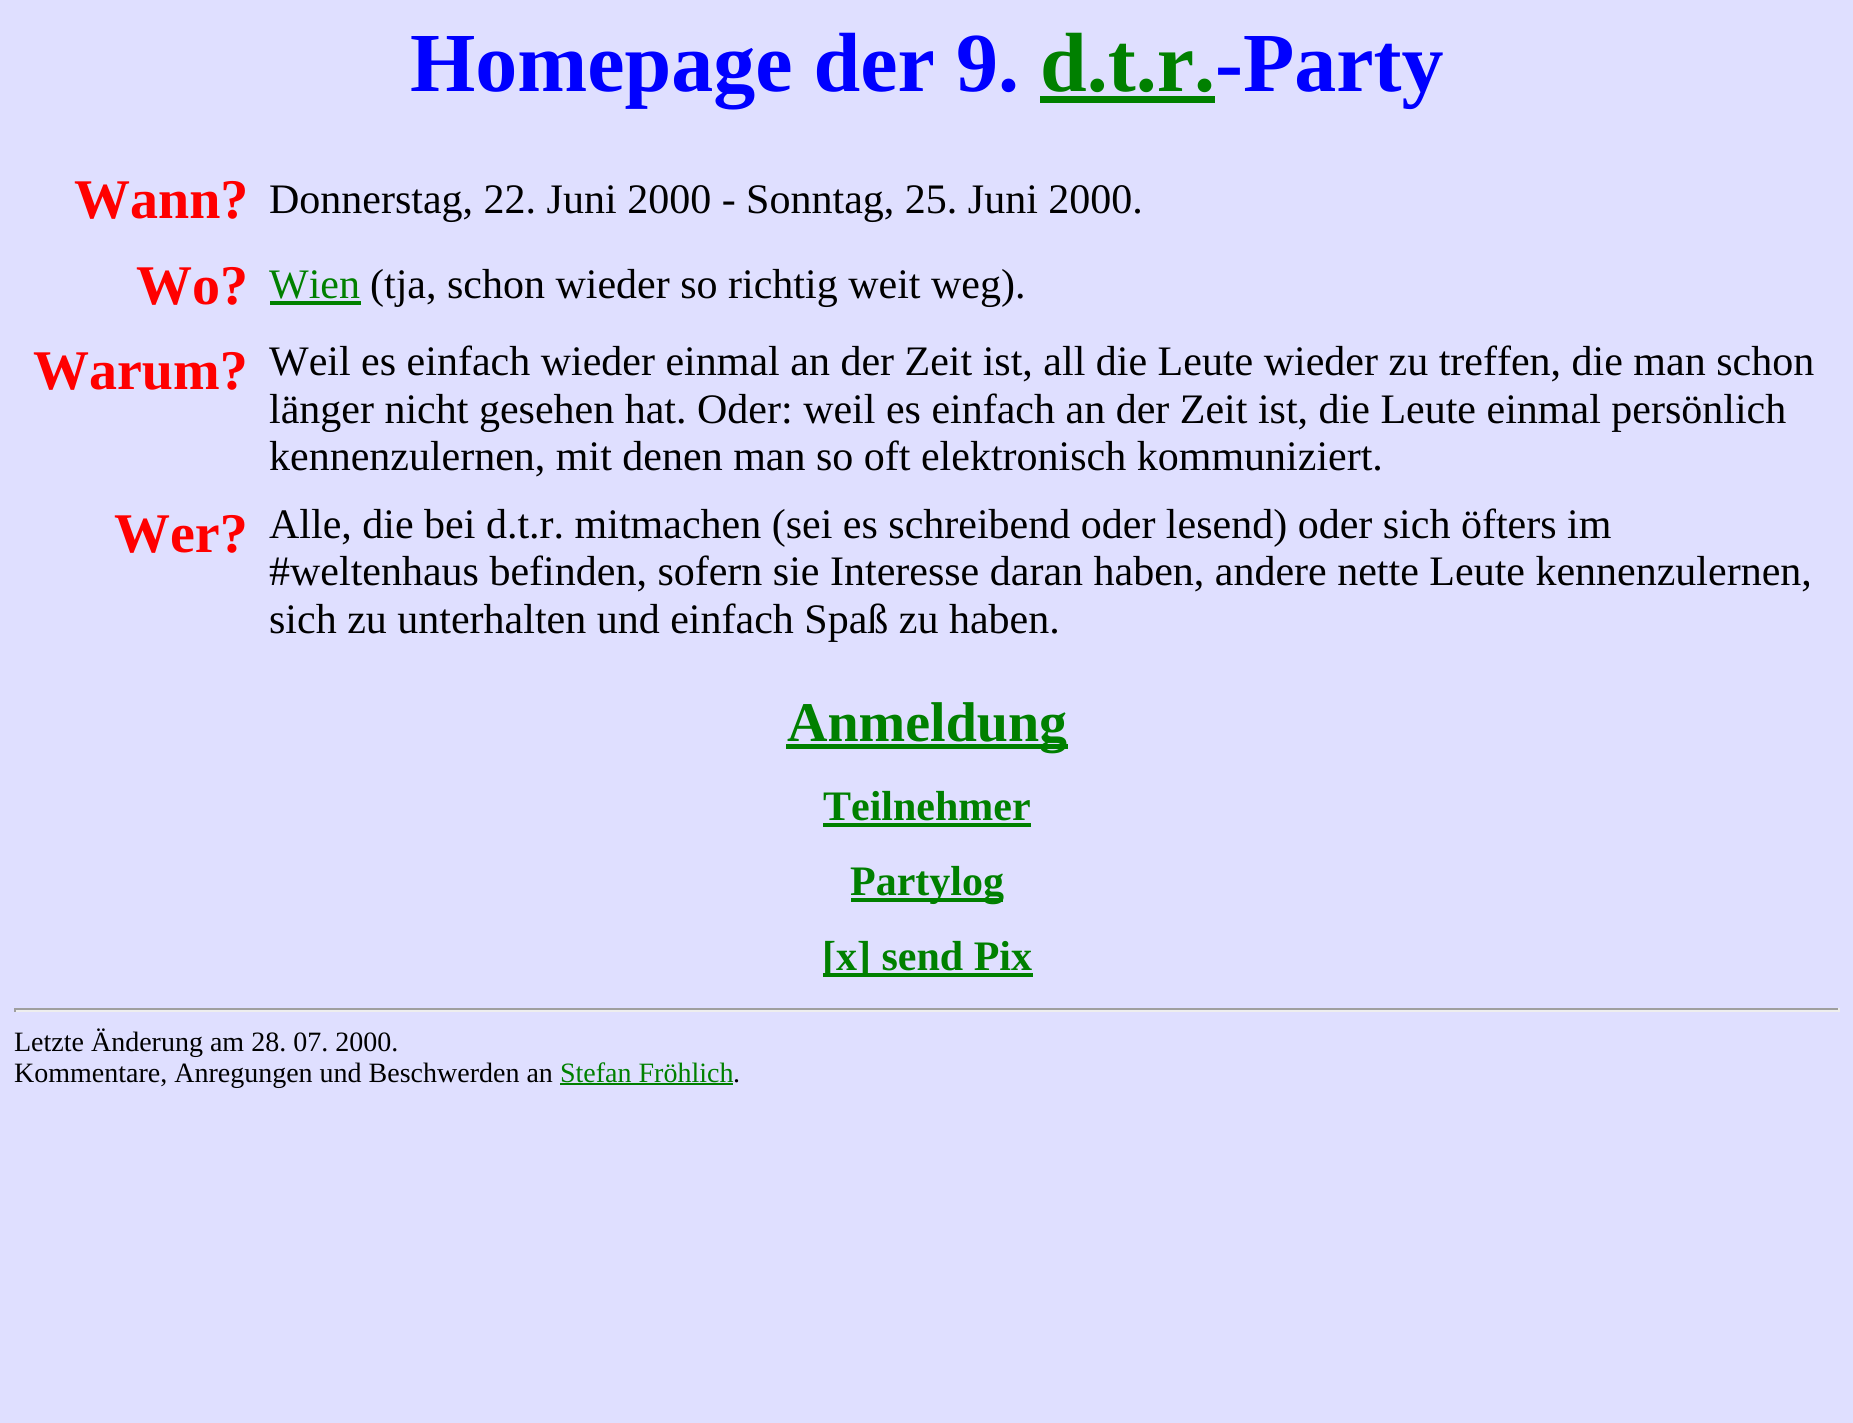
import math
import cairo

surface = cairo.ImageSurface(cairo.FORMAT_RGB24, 1853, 1423)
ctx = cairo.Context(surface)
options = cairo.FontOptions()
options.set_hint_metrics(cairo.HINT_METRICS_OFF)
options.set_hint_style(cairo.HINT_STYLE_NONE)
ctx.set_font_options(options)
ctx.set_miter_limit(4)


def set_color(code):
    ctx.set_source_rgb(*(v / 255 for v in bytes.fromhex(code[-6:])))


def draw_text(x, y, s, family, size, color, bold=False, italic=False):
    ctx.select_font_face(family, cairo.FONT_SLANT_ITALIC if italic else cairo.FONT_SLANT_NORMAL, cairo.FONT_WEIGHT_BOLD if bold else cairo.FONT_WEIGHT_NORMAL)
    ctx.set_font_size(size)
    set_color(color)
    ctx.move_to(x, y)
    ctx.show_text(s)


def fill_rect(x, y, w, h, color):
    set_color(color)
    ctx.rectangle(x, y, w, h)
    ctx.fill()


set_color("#dfdfff")
ctx.paint()
draw_text(410, 91, "Homepage der 9.", "Liberation Serif", 84, "#0000ff", bold=True)
draw_text(1040, 91, "d.t.r.", "Liberation Serif", 84, "#008000", bold=True)
draw_text(1215, 91, "-Party", "Liberation Serif", 84, "#0000ff", bold=True)
fill_rect(1040, 96, 175, 7, "#008000")
draw_text(74, 218, "Wann?", "Liberation Serif", 56, "#ff0000", bold=True)
draw_text(269, 213, "Donnerstag, 22. Juni 2000 - Sonntag, 25. Juni 2000.", "Liberation Serif", 42, "#000000")
draw_text(136, 304, "Wo?", "Liberation Serif", 56, "#ff0000", bold=True)
draw_text(269, 298, "Wien", "Liberation Serif", 42, "#008000")
fill_rect(270, 301, 91, 4, "#008000")
draw_text(370, 298, "(tja, schon wieder so richtig weit weg).", "Liberation Serif", 42, "#000000")
draw_text(33, 389, "Warum?", "Liberation Serif", 56, "#ff0000", bold=True)
draw_text(269, 375, "Weil es einfach wieder einmal an der Zeit ist, all die Leute wieder zu treffen, die man schon", "Liberation Serif", 42, "#000000")
draw_text(269, 423, "länger nicht gesehen hat. Oder: weil es einfach an der Zeit ist, die Leute einmal persönlich", "Liberation Serif", 42, "#000000")
draw_text(269, 470, "kennenzulernen, mit denen man so oft elektronisch kommuniziert.", "Liberation Serif", 42, "#000000")
draw_text(114, 552, "Wer?", "Liberation Serif", 56, "#ff0000", bold=True)
draw_text(269, 538, "Alle, die bei d.t.r. mitmachen (sei es schreibend oder lesend) oder sich öfters im", "Liberation Serif", 42, "#000000")
draw_text(269, 585, "#weltenhaus befinden, sofern sie Interesse daran haben, andere nette Leute kennenzulernen,", "Liberation Serif", 42, "#000000")
draw_text(269, 633, "sich zu unterhalten und einfach Spaß zu haben.", "Liberation Serif", 42, "#000000")
fill_rect(786, 744, 282, 5, "#008000")
draw_text(787, 741, "Anmeldung", "Liberation Serif", 56, "#008000", bold=True)
draw_text(823, 820, "Teilnehmer", "Liberation Serif", 42, "#008000", bold=True)
fill_rect(823, 823, 208, 4, "#008000")
fill_rect(851, 898, 152, 4, "#008000")
draw_text(850, 895, "Partylog", "Liberation Serif", 42, "#008000", bold=True)
fill_rect(823, 973, 210, 4, "#008000")
draw_text(822, 970, "[x] send Pix", "Liberation Serif", 42, "#008000", bold=True)
fill_rect(14, 1008, 1825, 2, "#9f9f9f")
fill_rect(1838, 1008, 2, 4, "#eeeeee")
fill_rect(14, 1010, 1825, 2, "#eeeeee")
fill_rect(14, 1008, 2, 4, "#9f9f9f")
draw_text(14, 1051, "Letzte Änderung am 28. 07. 2000.", "Liberation Serif", 28, "#000000")
draw_text(14, 1082, "Kommentare, Anregungen und Beschwerden an", "Liberation Serif", 28, "#000000")
draw_text(560, 1082, "Stefan Fröhlich", "Liberation Serif", 28, "#008000")
fill_rect(560, 1083, 173, 2, "#008000")
draw_text(733, 1082, ".", "Liberation Serif", 28, "#000000")
surface.write_to_png("output.png")
